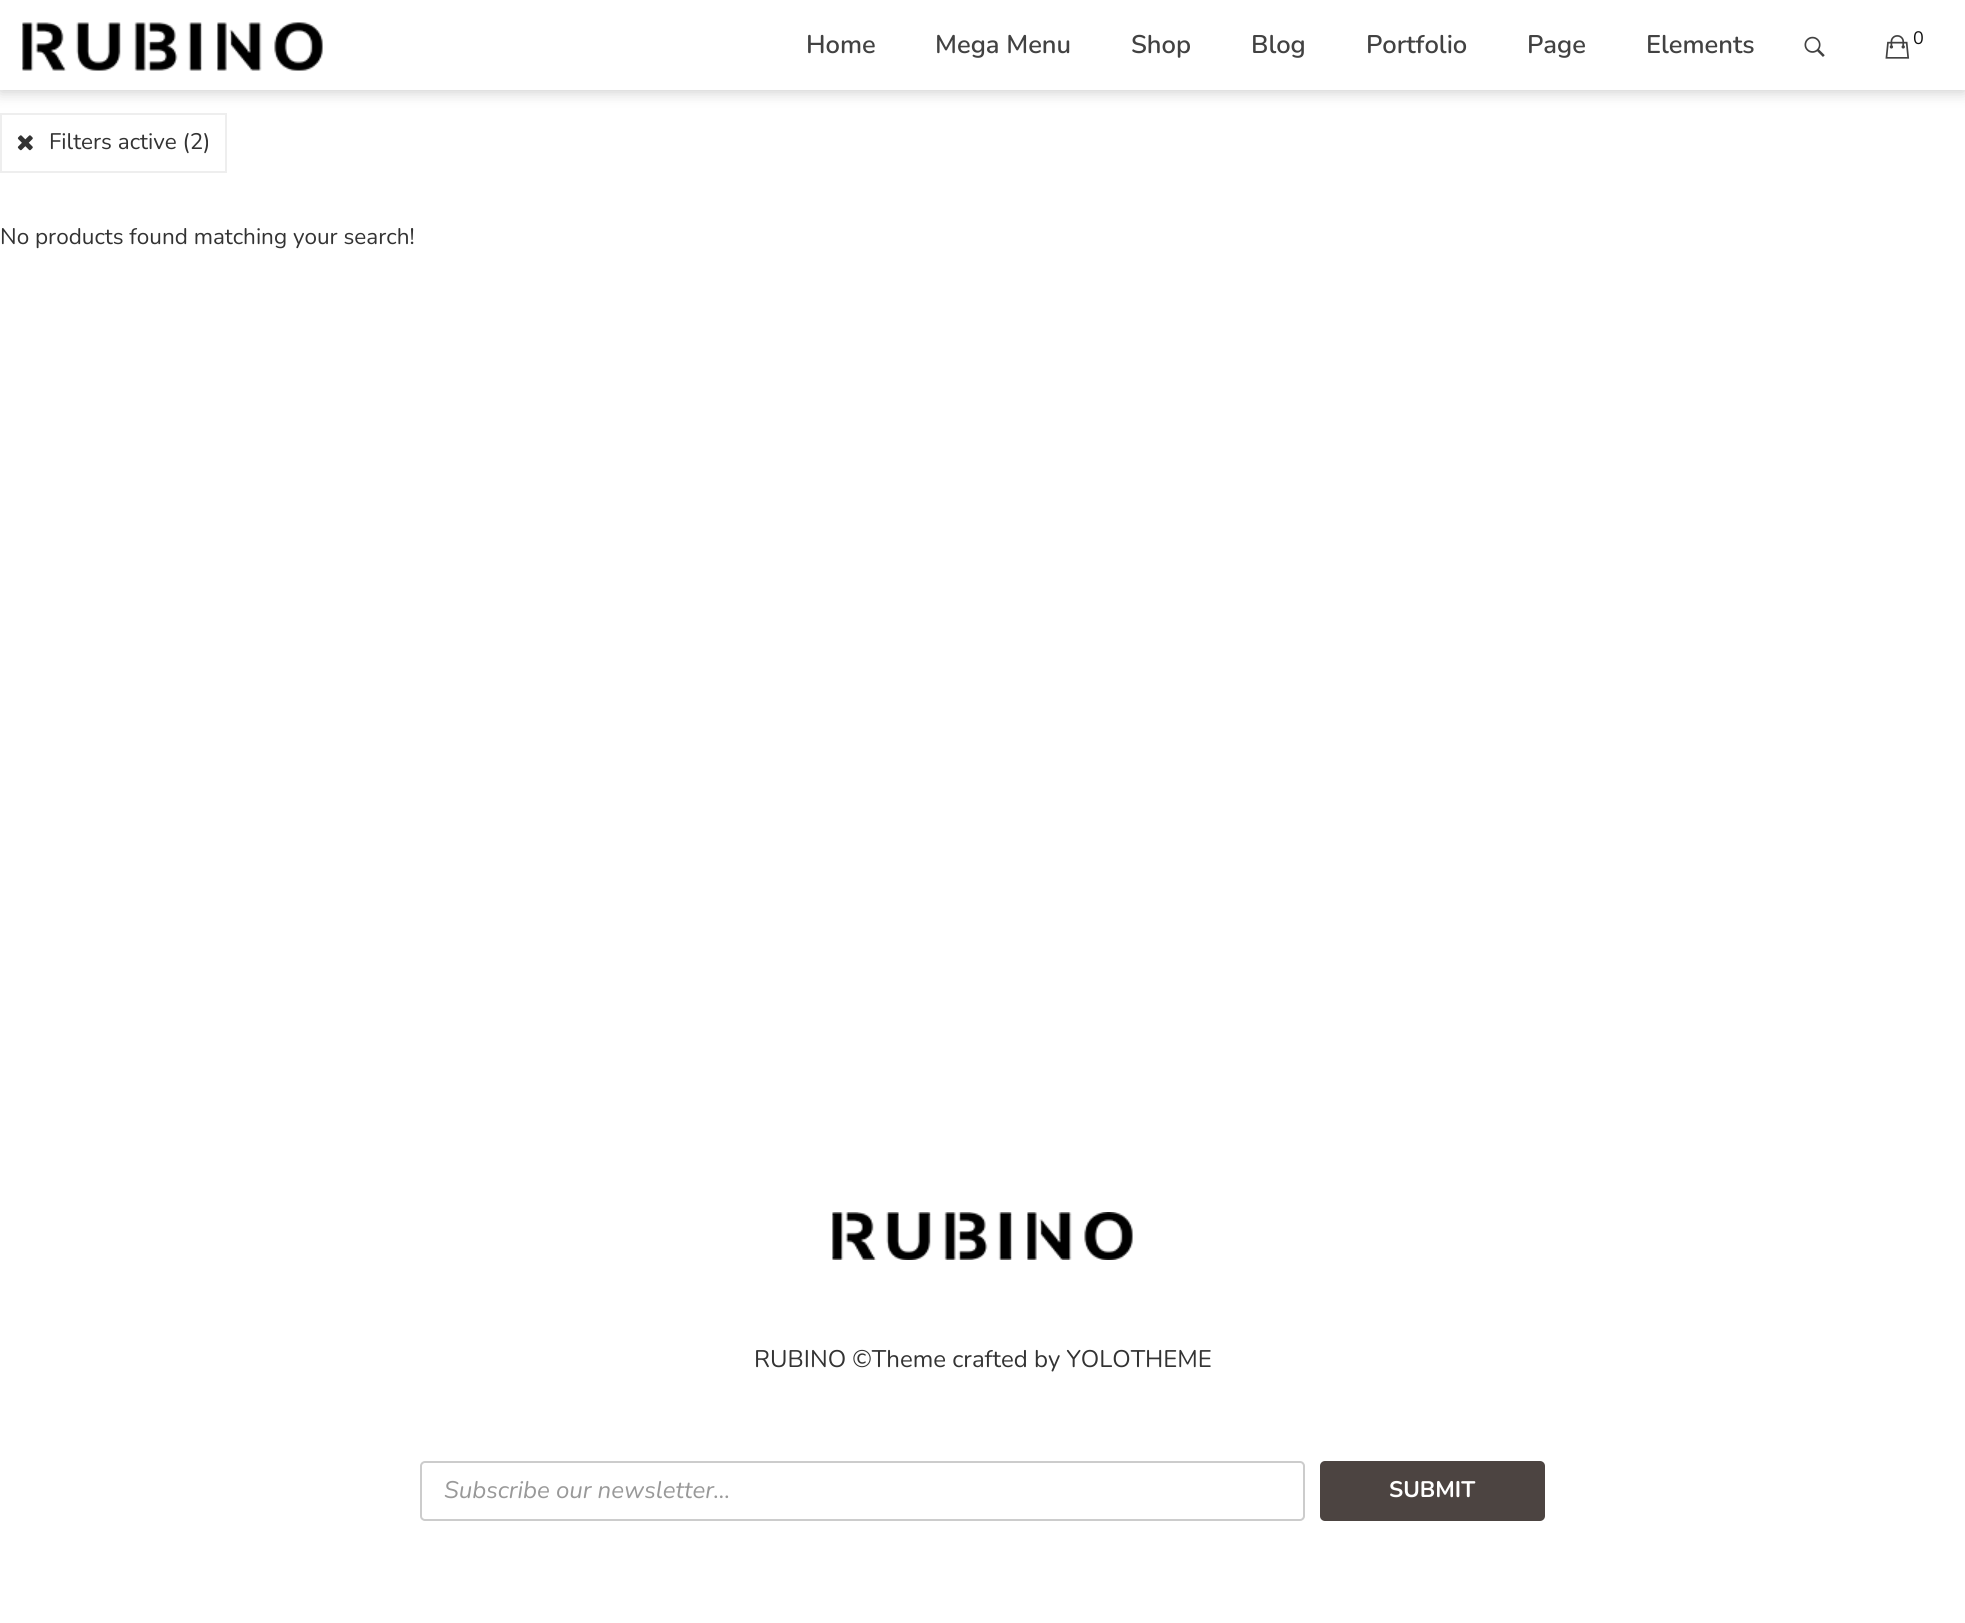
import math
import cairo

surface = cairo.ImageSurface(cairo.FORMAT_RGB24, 1965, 1623)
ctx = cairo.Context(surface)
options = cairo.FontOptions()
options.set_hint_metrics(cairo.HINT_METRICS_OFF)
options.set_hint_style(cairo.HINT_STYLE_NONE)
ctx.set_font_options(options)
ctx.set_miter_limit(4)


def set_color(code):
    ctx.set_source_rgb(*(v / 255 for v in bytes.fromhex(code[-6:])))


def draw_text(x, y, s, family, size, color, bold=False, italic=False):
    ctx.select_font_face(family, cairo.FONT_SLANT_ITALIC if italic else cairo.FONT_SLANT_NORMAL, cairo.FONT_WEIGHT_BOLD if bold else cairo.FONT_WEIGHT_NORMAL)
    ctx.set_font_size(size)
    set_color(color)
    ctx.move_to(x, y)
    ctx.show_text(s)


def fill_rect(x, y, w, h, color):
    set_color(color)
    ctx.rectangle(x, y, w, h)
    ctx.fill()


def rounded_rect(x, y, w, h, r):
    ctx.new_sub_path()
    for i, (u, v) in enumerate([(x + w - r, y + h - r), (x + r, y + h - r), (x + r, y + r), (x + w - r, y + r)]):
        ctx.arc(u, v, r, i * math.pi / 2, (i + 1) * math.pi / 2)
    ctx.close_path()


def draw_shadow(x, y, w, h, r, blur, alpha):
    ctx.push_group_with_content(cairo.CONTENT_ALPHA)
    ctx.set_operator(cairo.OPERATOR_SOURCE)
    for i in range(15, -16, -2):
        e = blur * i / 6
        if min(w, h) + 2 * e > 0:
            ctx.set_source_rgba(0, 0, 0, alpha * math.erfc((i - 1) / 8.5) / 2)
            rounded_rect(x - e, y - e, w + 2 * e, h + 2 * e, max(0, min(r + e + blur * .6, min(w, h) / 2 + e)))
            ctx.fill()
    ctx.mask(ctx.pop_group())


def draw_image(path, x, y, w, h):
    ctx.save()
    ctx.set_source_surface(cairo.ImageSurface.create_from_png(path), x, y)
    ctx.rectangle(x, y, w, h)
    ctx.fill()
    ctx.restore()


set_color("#ffffff")
ctx.paint()
ctx.rectangle(1, 114, 225, 58)
set_color("#eeeeee")
ctx.stroke()
set_color("#000000")
draw_shadow(0, 2, 1965, 90, 0, 7.5, 0.2)
fill_rect(0, 0, 1965, 90, "#ffffff")
draw_image("assets/img1.png", 22, 22, 301, 49)
draw_text(806, 53, "Home", "Nunito SemiBold", 25.5, "#424242")
draw_text(935, 53, "Mega Menu", "Nunito SemiBold", 25.5, "#424242")
draw_text(1131, 53, "Shop", "Nunito SemiBold", 25.5, "#424242")
draw_text(1251, 53, "Blog", "Nunito SemiBold", 25.5, "#424242")
draw_text(1366, 53, "Portfolio", "Nunito SemiBold", 25.5, "#424242")
draw_text(1527, 53, "Page", "Nunito SemiBold", 25.5, "#424242")
draw_text(1646, 53, "Elements", "Nunito SemiBold", 25.5, "#424242")
draw_image("assets/img2.png", 1804, 36, 21, 21)
draw_image("assets/img3.png", 1885, 35, 25, 24)
draw_text(1913, 44, "0", "Nunito", 18, "#111111")
draw_image("assets/img4.png", 17, 135, 16, 16)
draw_text(49, 149, "Filters active (2)", "Nunito", 22.5, "#333333")
draw_text(0, 244, "No products found matching your search!", "Nunito", 22.5, "#333333")
draw_image("assets/img5.png", 832, 1212, 301, 48)
draw_text(754, 1367, "RUBINO ©Theme crafted by YOLOTHEME", "Nunito", 24, "#333333")
rounded_rect(421, 1462, 883, 58, 4)
set_color("#cccccc")
ctx.stroke()
draw_text(444, 1498, "Subscribe our newsletter...", "Nunito", 24, "#999999", italic=True)
set_color("#4c4441")
rounded_rect(1320, 1461, 225, 60, 5)
ctx.fill()
draw_text(1389, 1497, "SUBMIT", "Nunito", 22.5, "#ffffff", bold=True)
surface.write_to_png("output.png")
